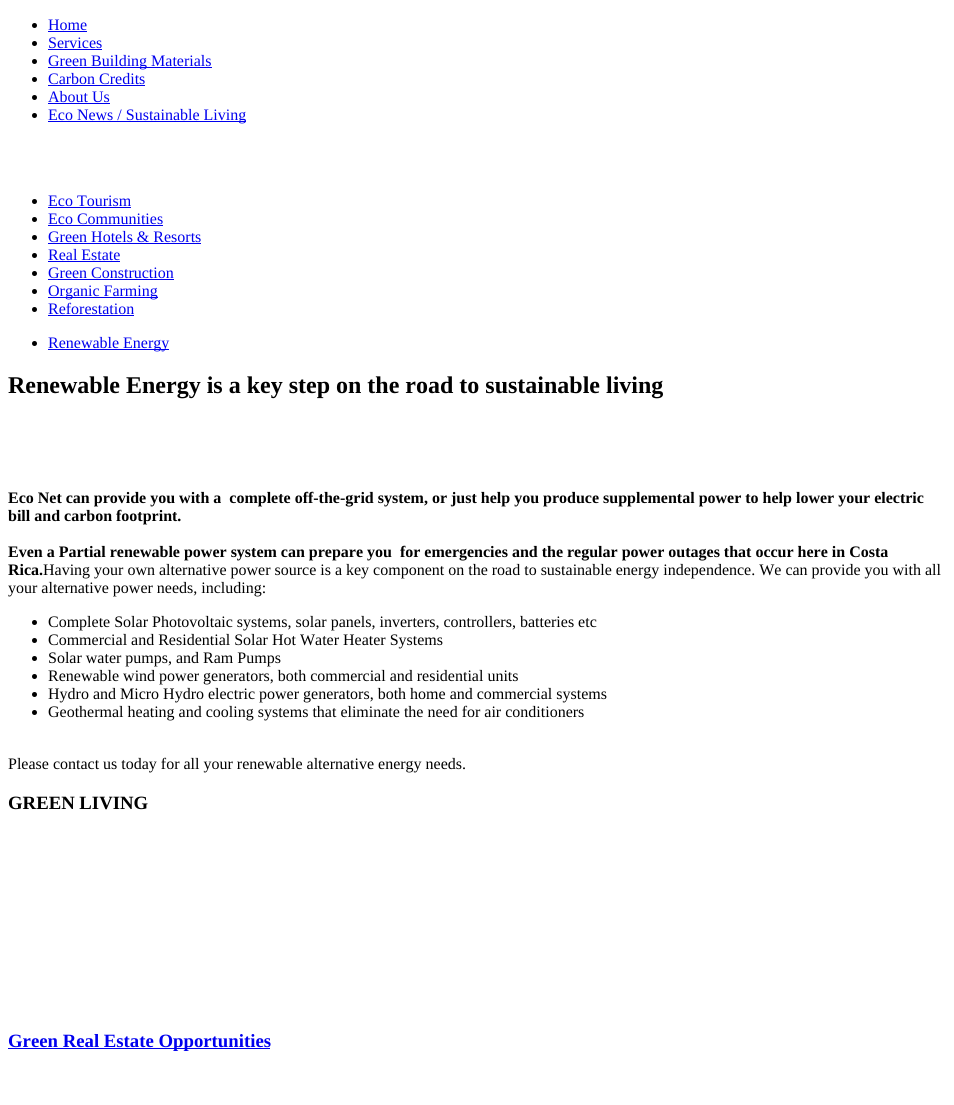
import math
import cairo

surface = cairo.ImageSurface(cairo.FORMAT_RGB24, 954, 1105)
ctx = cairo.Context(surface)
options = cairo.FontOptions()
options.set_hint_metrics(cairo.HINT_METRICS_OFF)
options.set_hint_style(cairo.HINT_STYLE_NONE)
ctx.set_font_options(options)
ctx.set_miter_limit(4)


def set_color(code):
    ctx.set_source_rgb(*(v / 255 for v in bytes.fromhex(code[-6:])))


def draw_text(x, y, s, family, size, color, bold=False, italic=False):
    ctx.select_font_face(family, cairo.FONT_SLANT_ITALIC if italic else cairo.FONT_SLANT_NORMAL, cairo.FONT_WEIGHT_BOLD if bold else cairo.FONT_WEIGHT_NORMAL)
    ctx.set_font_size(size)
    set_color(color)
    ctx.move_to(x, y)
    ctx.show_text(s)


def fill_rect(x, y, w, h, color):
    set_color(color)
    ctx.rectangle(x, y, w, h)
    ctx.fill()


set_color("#ffffff")
ctx.paint()
set_color("#000000")
ctx.arc(34.5, 25.5, 2.5, 0, 2 * math.pi)
ctx.fill()
draw_text(48, 30, "Home", "Liberation Serif", 16, "#0000ee")
fill_rect(48, 31, 39, 1, "#0000ee")
set_color("#000000")
ctx.new_path()
ctx.arc(34.5, 43.5, 2.5, 0, 2 * math.pi)
ctx.fill()
draw_text(48, 48, "Services", "Liberation Serif", 16, "#0000ee")
fill_rect(48, 49, 54, 1, "#0000ee")
set_color("#000000")
ctx.new_path()
ctx.arc(34.5, 61.5, 2.5, 0, 2 * math.pi)
ctx.fill()
fill_rect(48, 67, 164, 1, "#0000ee")
draw_text(48, 66, "Green Building Materials", "Liberation Serif", 16, "#0000ee")
set_color("#000000")
ctx.new_path()
ctx.arc(34.5, 79.5, 2.5, 0, 2 * math.pi)
ctx.fill()
draw_text(48, 84, "Carbon Credits", "Liberation Serif", 16, "#0000ee")
fill_rect(48, 85, 97, 1, "#0000ee")
set_color("#000000")
ctx.new_path()
ctx.arc(34.5, 97.5, 2.5, 0, 2 * math.pi)
ctx.fill()
draw_text(48, 102, "About Us", "Liberation Serif", 16, "#0000ee")
fill_rect(48, 103, 62, 1, "#0000ee")
set_color("#000000")
ctx.new_path()
ctx.arc(34.5, 115.5, 2.5, 0, 2 * math.pi)
ctx.fill()
fill_rect(48, 121, 198, 1, "#0000ee")
draw_text(48, 120, "Eco News / Sustainable Living", "Liberation Serif", 16, "#0000ee")
set_color("#000000")
ctx.new_path()
ctx.arc(34.5, 201.5, 2.5, 0, 2 * math.pi)
ctx.fill()
draw_text(48, 206, "Eco Tourism", "Liberation Serif", 16, "#0000ee")
fill_rect(48, 207, 83, 1, "#0000ee")
set_color("#000000")
ctx.new_path()
ctx.arc(34.5, 219.5, 2.5, 0, 2 * math.pi)
ctx.fill()
draw_text(48, 224, "Eco Communities", "Liberation Serif", 16, "#0000ee")
fill_rect(48, 225, 115, 1, "#0000ee")
set_color("#000000")
ctx.new_path()
ctx.arc(34.5, 237.5, 2.5, 0, 2 * math.pi)
ctx.fill()
draw_text(48, 242, "Green Hotels & Resorts", "Liberation Serif", 16, "#0000ee")
fill_rect(48, 243, 153, 1, "#0000ee")
set_color("#000000")
ctx.new_path()
ctx.arc(34.5, 255.5, 2.5, 0, 2 * math.pi)
ctx.fill()
draw_text(48, 260, "Real Estate", "Liberation Serif", 16, "#0000ee")
fill_rect(48, 261, 72, 1, "#0000ee")
set_color("#000000")
ctx.new_path()
ctx.arc(34.5, 273.5, 2.5, 0, 2 * math.pi)
ctx.fill()
draw_text(48, 278, "Green Construction", "Liberation Serif", 16, "#0000ee")
fill_rect(48, 279, 126, 1, "#0000ee")
set_color("#000000")
ctx.new_path()
ctx.arc(34.5, 291.5, 2.5, 0, 2 * math.pi)
ctx.fill()
fill_rect(48, 297, 110, 1, "#0000ee")
draw_text(48, 296, "Organic Farming", "Liberation Serif", 16, "#0000ee")
set_color("#000000")
ctx.new_path()
ctx.arc(34.5, 309.5, 2.5, 0, 2 * math.pi)
ctx.fill()
draw_text(48, 314, "Reforestation", "Liberation Serif", 16, "#0000ee")
fill_rect(48, 315, 86, 1, "#0000ee")
set_color("#000000")
ctx.new_path()
ctx.arc(34.5, 343.5, 2.5, 0, 2 * math.pi)
ctx.fill()
fill_rect(48, 349, 121, 1, "#0000ee")
draw_text(48, 348, "Renewable Energy", "Liberation Serif", 16, "#0000ee")
draw_text(8, 393, "Renewable Energy is a key step on the road to sustainable living", "Liberation Serif", 24, "#000000", bold=True)
draw_text(8, 503, "Eco Net can provide you with a  complete off-the-grid system, or just help you produce supplemental power to help lower your electric", "Liberation Serif", 16, "#000000", bold=True)
draw_text(8, 521, "bill and carbon footprint.", "Liberation Serif", 16, "#000000", bold=True)
draw_text(8, 557, "Even a Partial renewable power system can prepare you  for emergencies and the regular power outages that occur here in Costa", "Liberation Serif", 16, "#000000", bold=True)
draw_text(8, 575, "Rica.", "Liberation Serif", 16, "#000000", bold=True)
draw_text(43, 575, "Having your own alternative power source is a key component on the road to sustainable energy independence. We can provide you with all", "Liberation Serif", 16, "#000000")
draw_text(8, 593, "your alternative power needs, including:", "Liberation Serif", 16, "#000000")
ctx.new_path()
ctx.arc(34.5, 622.5, 2.5, 0, 2 * math.pi)
ctx.fill()
draw_text(48, 627, "Complete Solar Photovoltaic systems, solar panels, inverters, controllers, batteries etc", "Liberation Serif", 16, "#000000")
ctx.new_path()
ctx.arc(34.5, 640.5, 2.5, 0, 2 * math.pi)
ctx.fill()
draw_text(48, 645, "Commercial and Residential Solar Hot Water Heater Systems", "Liberation Serif", 16, "#000000")
ctx.new_path()
ctx.arc(34.5, 658.5, 2.5, 0, 2 * math.pi)
ctx.fill()
draw_text(48, 663, "Solar water pumps, and Ram Pumps", "Liberation Serif", 16, "#000000")
ctx.new_path()
ctx.arc(34.5, 676.5, 2.5, 0, 2 * math.pi)
ctx.fill()
draw_text(48, 681, "Renewable wind power generators, both commercial and residential units", "Liberation Serif", 16, "#000000")
ctx.new_path()
ctx.arc(34.5, 694.5, 2.5, 0, 2 * math.pi)
ctx.fill()
draw_text(48, 699, "Hydro and Micro Hydro electric power generators, both home and commercial systems", "Liberation Serif", 16, "#000000")
ctx.new_path()
ctx.arc(34.5, 712.5, 2.5, 0, 2 * math.pi)
ctx.fill()
draw_text(48, 717, "Geothermal heating and cooling systems that eliminate the need for air conditioners", "Liberation Serif", 16, "#000000")
draw_text(8, 769, "Please contact us today for all your renewable alternative energy needs.", "Liberation Serif", 16, "#000000")
draw_text(8, 809, "GREEN LIVING", "Liberation Serif", 18.75, "#000000", bold=True)
fill_rect(8, 1048, 262, 1, "#0000ee")
draw_text(8, 1047, "Green Real Estate Opportunities", "Liberation Serif", 18.75, "#0000ee", bold=True)
surface.write_to_png("output.png")
